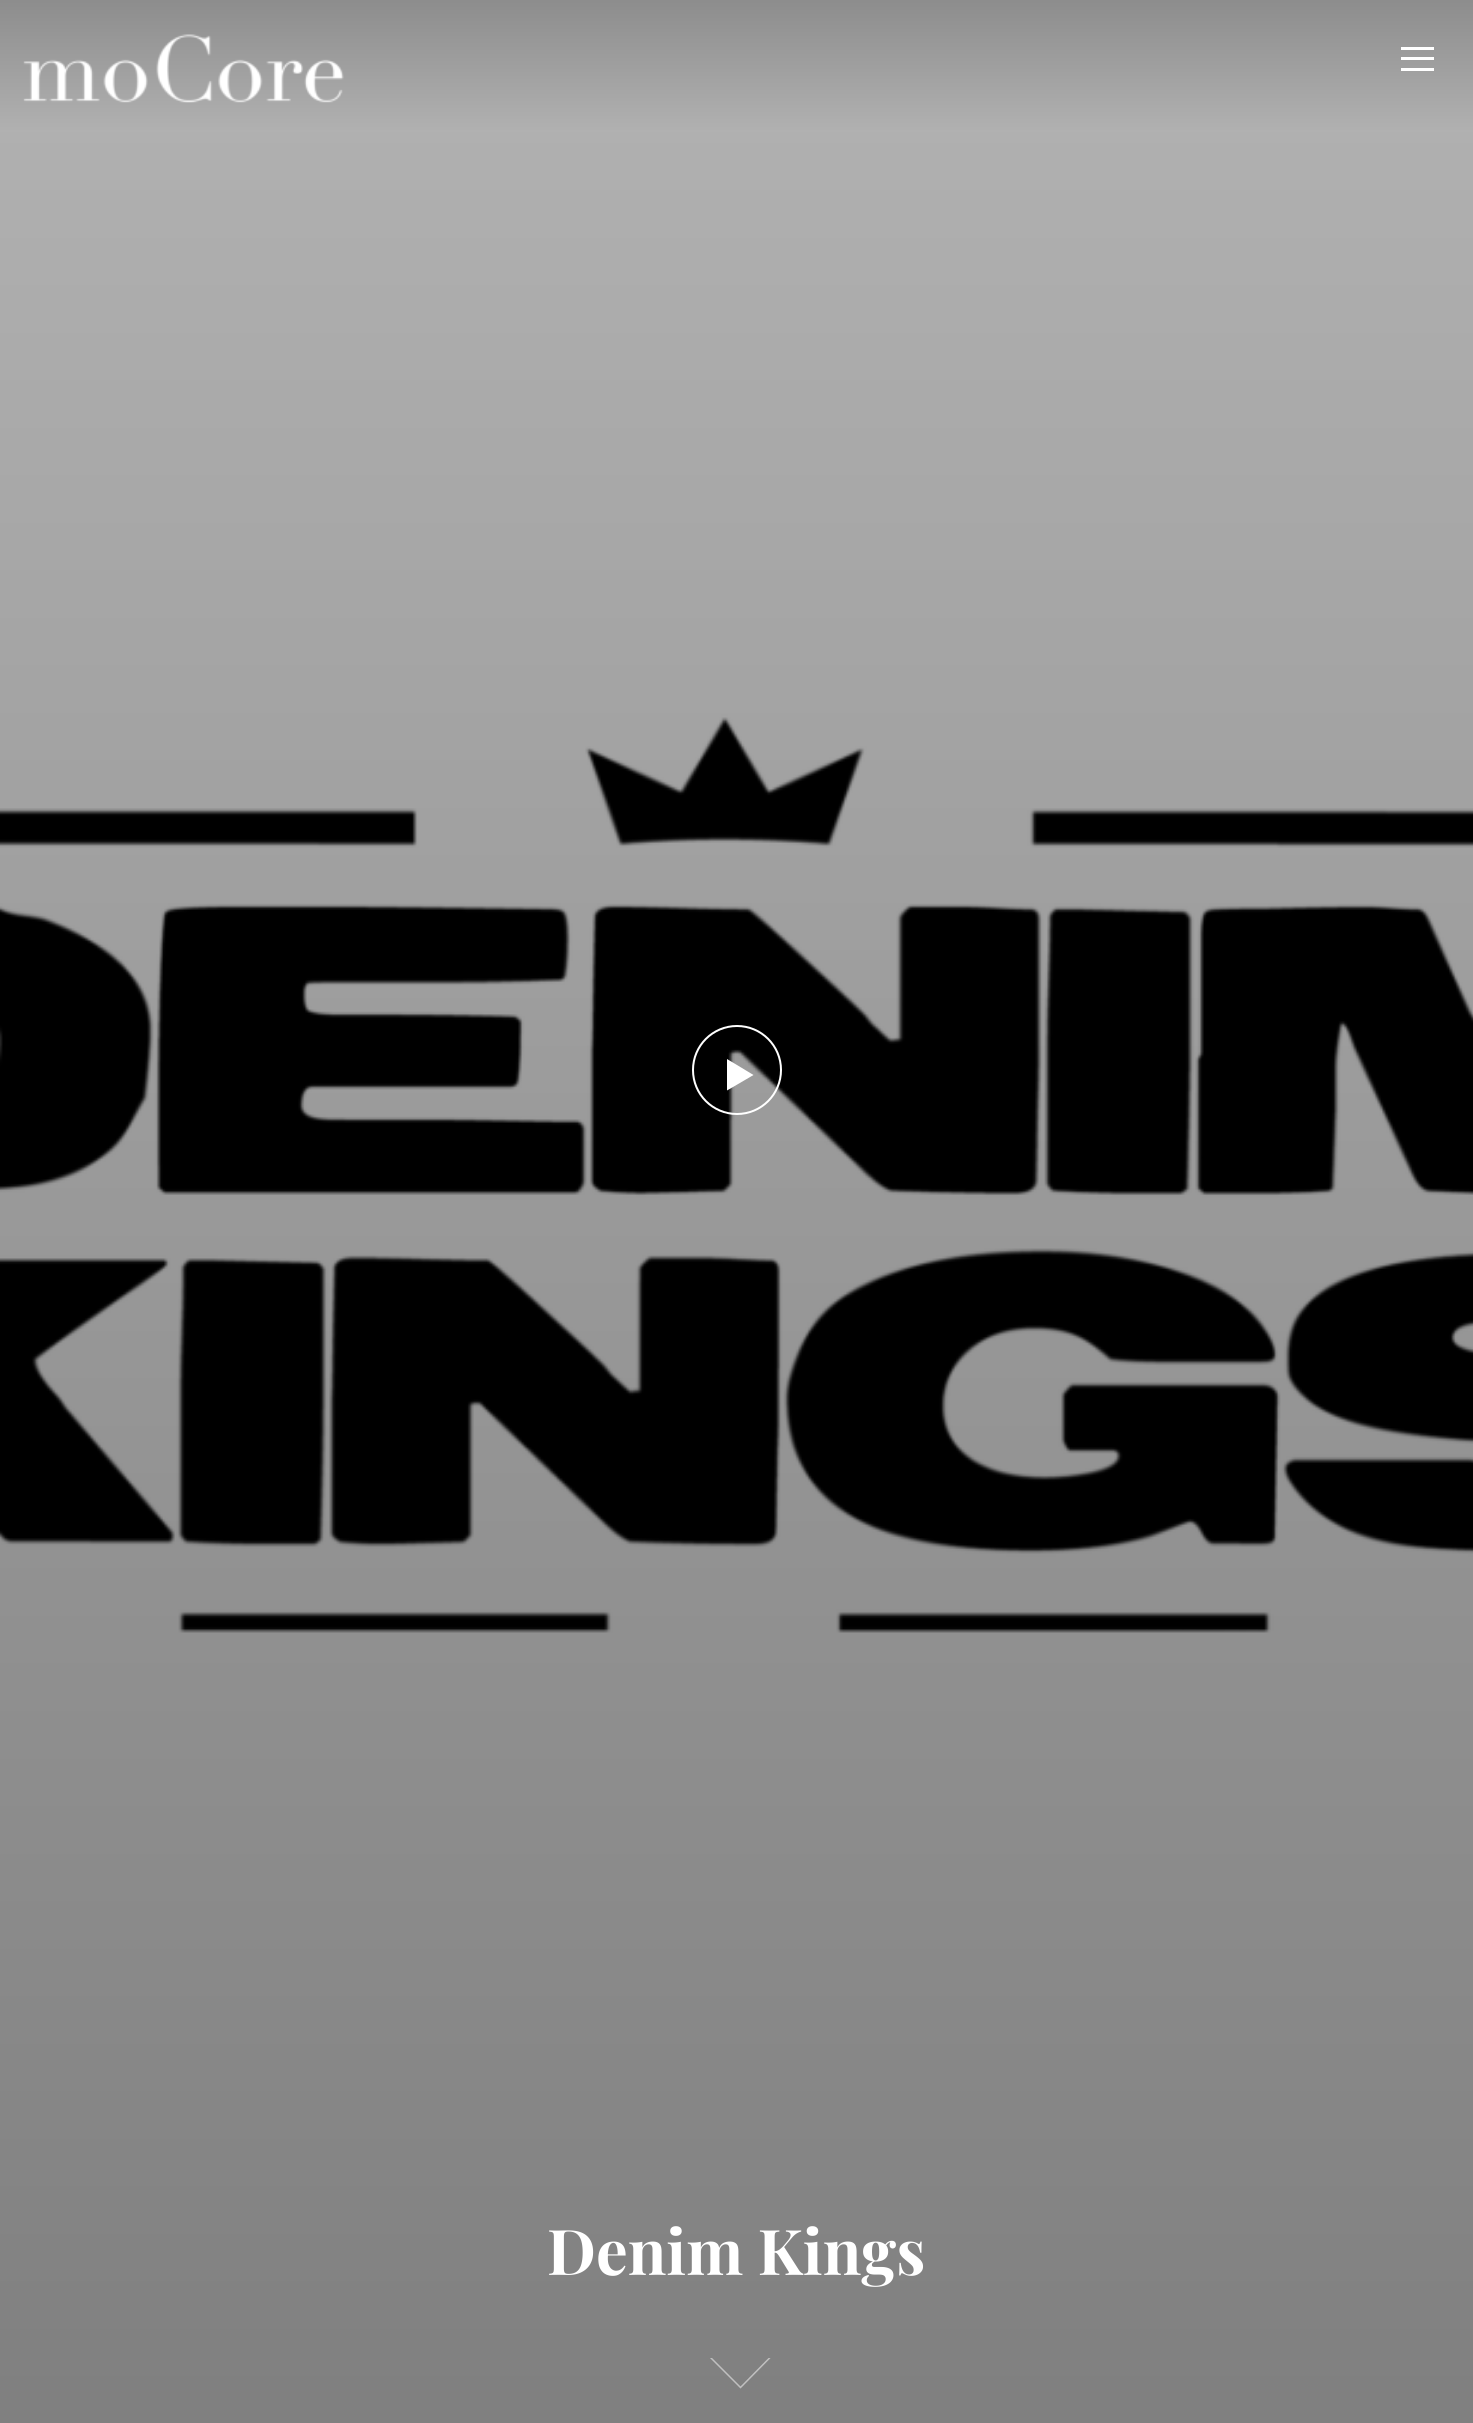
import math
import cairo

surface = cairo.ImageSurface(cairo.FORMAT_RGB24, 1473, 2423)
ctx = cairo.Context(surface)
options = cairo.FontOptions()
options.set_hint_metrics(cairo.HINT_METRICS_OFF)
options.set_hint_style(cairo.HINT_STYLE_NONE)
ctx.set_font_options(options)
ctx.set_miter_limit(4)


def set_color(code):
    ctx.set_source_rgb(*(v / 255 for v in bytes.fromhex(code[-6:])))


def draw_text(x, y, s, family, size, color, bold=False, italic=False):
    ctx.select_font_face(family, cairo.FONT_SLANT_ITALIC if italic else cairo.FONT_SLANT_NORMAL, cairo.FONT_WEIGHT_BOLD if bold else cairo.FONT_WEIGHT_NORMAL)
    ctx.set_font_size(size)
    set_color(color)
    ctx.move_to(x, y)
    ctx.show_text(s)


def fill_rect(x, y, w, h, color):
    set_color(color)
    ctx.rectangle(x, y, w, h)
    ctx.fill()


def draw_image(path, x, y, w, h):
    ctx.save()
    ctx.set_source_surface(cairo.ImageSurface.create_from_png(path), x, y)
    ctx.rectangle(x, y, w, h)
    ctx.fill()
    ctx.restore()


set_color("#ffffff")
ctx.paint()
gradient = cairo.LinearGradient(737, 0, 737, 132)
gradient.add_color_stop_rgba(0.01, 0.553, 0.553, 0.553, 1)
gradient.add_color_stop_rgba(1, 0.694, 0.694, 0.694, 1)
ctx.set_source(gradient)
ctx.rectangle(0, 0, 1473, 132)
ctx.fill()
draw_image("assets/img1.png", 23, 34, 321, 69)
fill_rect(1401, 47, 33, 3, "#ffffff")
fill_rect(1401, 57, 33, 3, "#ffffff")
fill_rect(1401, 68, 33, 3, "#ffffff")
draw_image("assets/img2.png", 0, 132, 1473, 2291)
ctx.save()
ctx.rectangle(696, 2358, 104, 36)
ctx.clip()
ctx.new_path()
ctx.move_to(740.5, 2325.5)
ctx.line_to(771, 2356.5)
ctx.line_to(740.5, 2387.5)
ctx.line_to(709.5, 2356.5)
ctx.close_path()
set_color("#c0c0c0")
ctx.set_line_width(1.5)
ctx.stroke()
ctx.restore()
ctx.arc(737, 1070, 44, 0, 2 * math.pi)
ctx.stroke()
ctx.new_path()
ctx.move_to(727, 1059)
ctx.line_to(753.5, 1075)
ctx.line_to(727, 1090.5)
ctx.close_path()
ctx.fill()
draw_text(547, 2275, "Denim Kings", "Playfair Display", 63, "#ffffff", bold=True)
surface.write_to_png("output.png")
